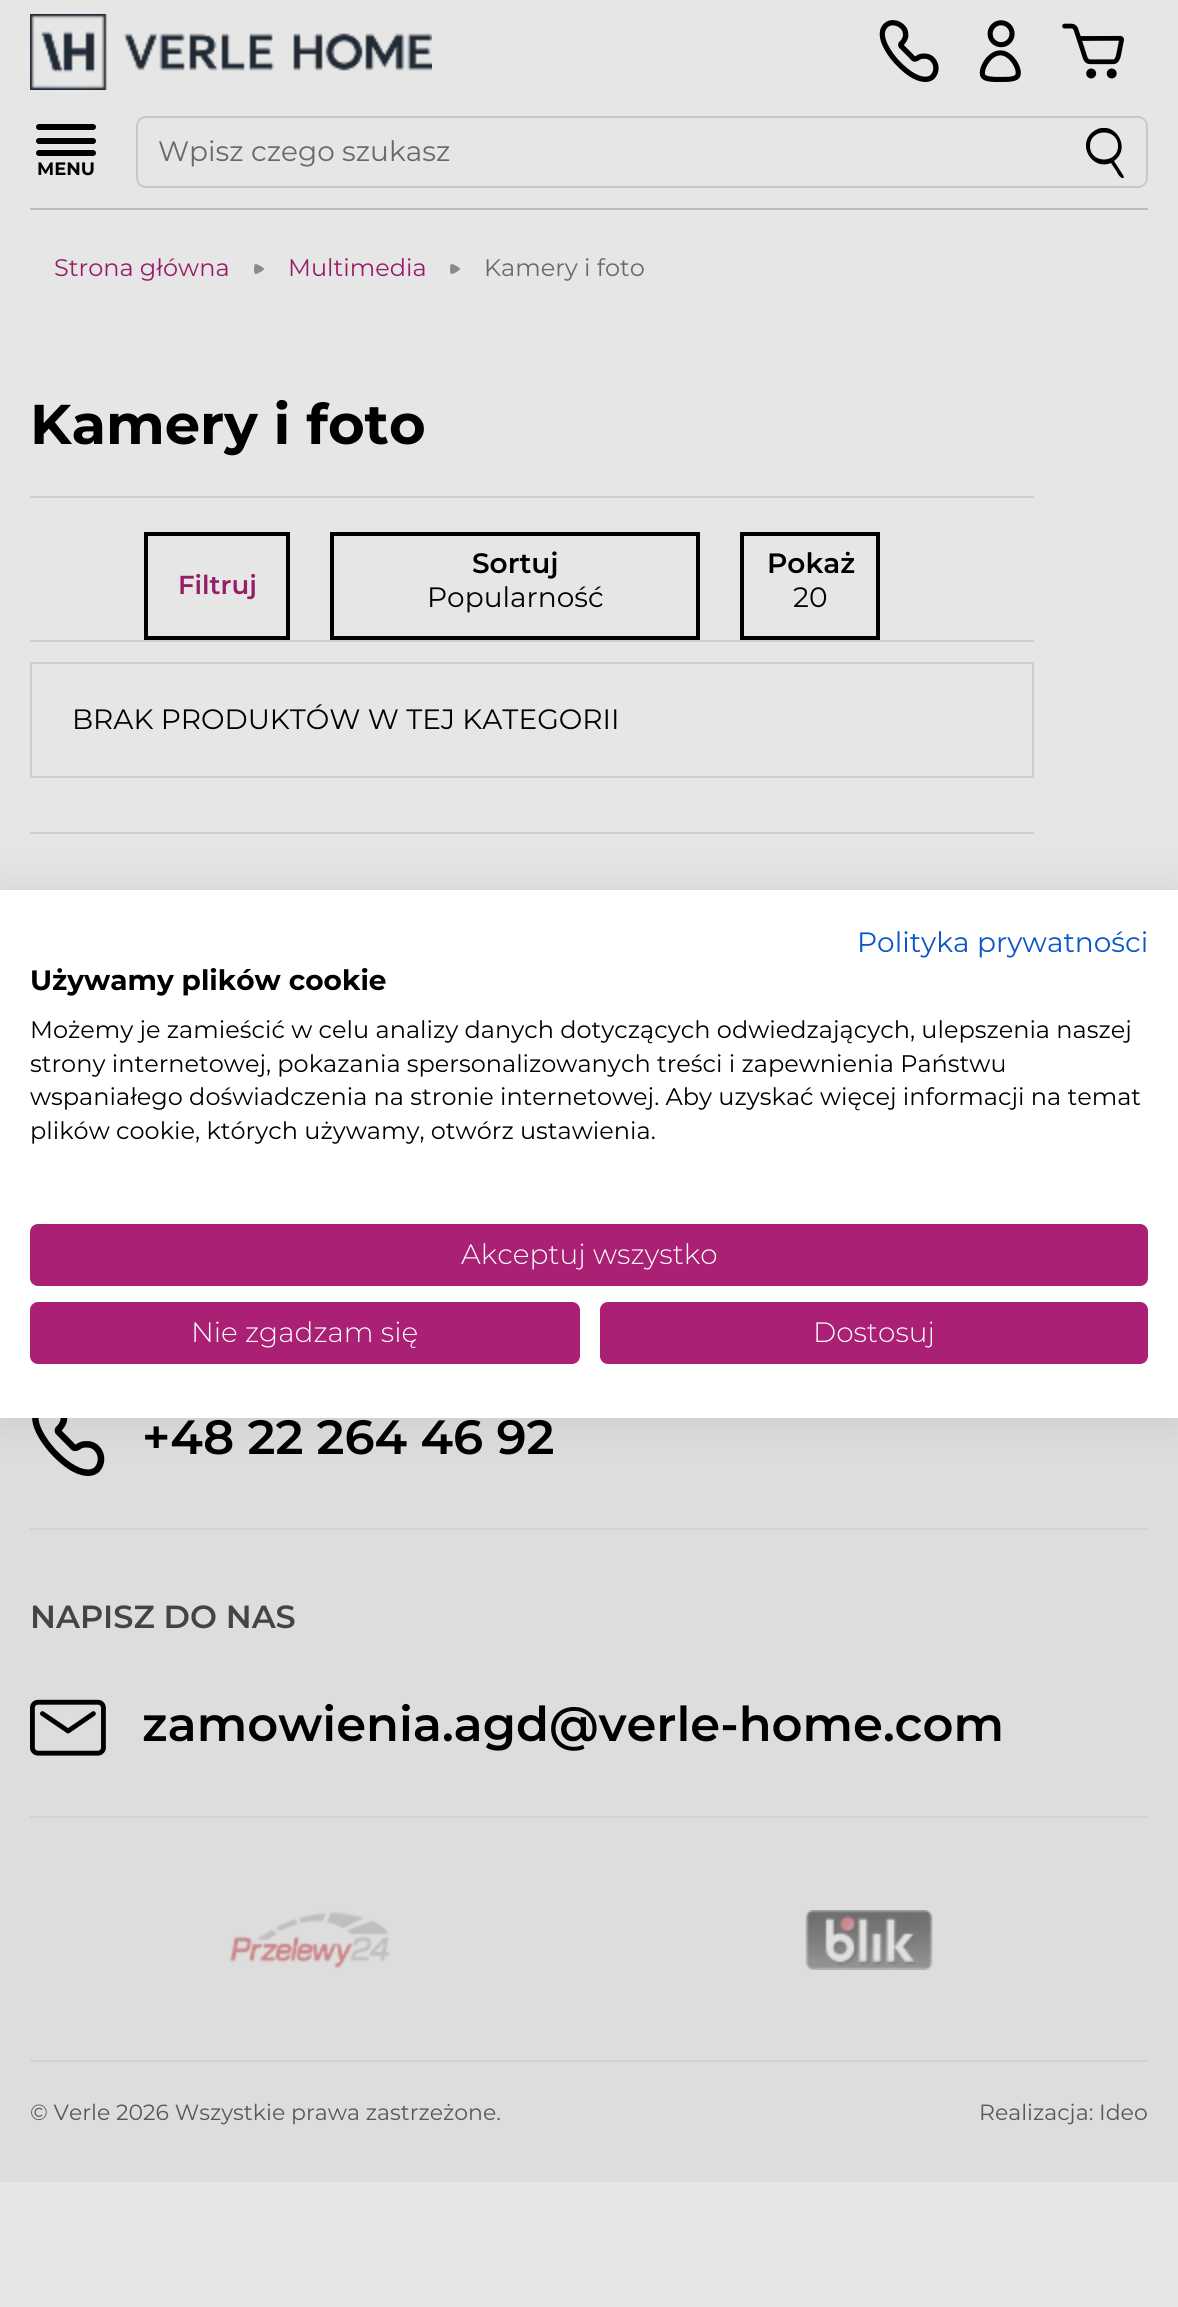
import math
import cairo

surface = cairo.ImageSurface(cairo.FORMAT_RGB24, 1178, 2307)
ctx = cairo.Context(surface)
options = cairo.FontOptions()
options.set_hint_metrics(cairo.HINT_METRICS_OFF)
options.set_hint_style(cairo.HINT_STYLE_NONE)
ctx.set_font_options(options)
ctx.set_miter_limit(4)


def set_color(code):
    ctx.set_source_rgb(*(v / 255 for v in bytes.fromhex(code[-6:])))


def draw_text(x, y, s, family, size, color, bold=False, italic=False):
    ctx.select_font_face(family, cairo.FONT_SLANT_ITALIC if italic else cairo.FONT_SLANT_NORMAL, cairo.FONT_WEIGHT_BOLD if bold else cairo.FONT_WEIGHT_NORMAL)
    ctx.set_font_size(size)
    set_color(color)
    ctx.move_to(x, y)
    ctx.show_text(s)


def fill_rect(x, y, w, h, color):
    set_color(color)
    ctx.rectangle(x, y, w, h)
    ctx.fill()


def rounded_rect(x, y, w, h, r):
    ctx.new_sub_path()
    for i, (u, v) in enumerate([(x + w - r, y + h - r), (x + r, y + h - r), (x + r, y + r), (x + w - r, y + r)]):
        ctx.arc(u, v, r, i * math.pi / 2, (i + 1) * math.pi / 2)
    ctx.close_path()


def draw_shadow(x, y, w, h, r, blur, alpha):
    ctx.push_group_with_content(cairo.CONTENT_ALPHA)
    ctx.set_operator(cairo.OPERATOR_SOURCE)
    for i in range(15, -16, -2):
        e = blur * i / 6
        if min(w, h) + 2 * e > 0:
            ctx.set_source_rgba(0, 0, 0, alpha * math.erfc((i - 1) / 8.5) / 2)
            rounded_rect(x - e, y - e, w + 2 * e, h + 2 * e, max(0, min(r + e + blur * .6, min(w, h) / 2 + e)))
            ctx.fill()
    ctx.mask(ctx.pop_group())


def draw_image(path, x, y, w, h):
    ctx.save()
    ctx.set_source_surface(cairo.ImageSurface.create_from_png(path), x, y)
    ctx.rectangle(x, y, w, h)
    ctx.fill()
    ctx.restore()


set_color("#e6e6e6")
ctx.paint()
draw_image("assets/img1.png", 30, 14, 402, 76)
draw_image("assets/img2.png", 879, 20, 60, 62)
draw_image("assets/img3.png", 979, 20, 42, 62)
draw_image("assets/img4.png", 1062, 23, 62, 56)
fill_rect(30, 208, 1118, 2, "#bcbcbc")
rounded_rect(137, 117, 1010, 70, 9)
set_color("#c8c8c8")
ctx.stroke()
draw_text(158, 161, "Wpisz czego szukasz", "Montserrat", 28, "#696969")
ctx.save()
ctx.rectangle(1080, 128, 50, 50)
ctx.clip()
set_color("#000000")
ctx.new_path()
ctx.move_to(1123, 175)
ctx.line_to(1114, 161)
ctx.curve_to(1133, 147, 1113, 118, 1094, 131)
ctx.curve_to(1076, 143, 1091, 171, 1111, 163)
ctx.line_to(1117, 172)
ctx.curve_to(1117, 173, 1122, 181, 1124, 177)
ctx.close_path()
ctx.move_to(1090, 146)
ctx.curve_to(1090, 128, 1118, 128, 1118, 146)
ctx.curve_to(1118, 164, 1090, 164, 1090, 146)
ctx.close_path()
ctx.fill()
ctx.restore()
set_color("#000000")
rounded_rect(36, 124, 60, 6, 3)
ctx.fill()
rounded_rect(36, 138, 60, 6, 3)
ctx.fill()
rounded_rect(36, 150, 60, 6, 3)
ctx.fill()
draw_text(37, 175, "MENU", "Montserrat", 18, "#000000", bold=True)
draw_text(54, 276, "Strona główna", "Montserrat", 24, "#981d68")
draw_image("assets/img5.png", 254, 264, 10, 10)
draw_text(288, 276, "Multimedia", "Montserrat", 24, "#981d68")
draw_image("assets/img5.png", 450, 264, 10, 10)
draw_text(484, 276, "Kamery i foto", "Montserrat", 24, "#696969")
draw_text(30, 444, "Kamery i foto", "Montserrat", 56, "#000000", bold=True)
fill_rect(30, 496, 1004, 2, "#cdcdcd")
fill_rect(30, 640, 1004, 2, "#cdcdcd")
ctx.rectangle(146, 534, 142, 104)
set_color("#000000")
ctx.set_line_width(4)
ctx.stroke()
draw_text(178, 594, "Filtruj", "Montserrat SemiBold", 26, "#981d68")
draw_text(472, 573, "Sortuj", "Montserrat SemiBold", 28, "#000000")
ctx.rectangle(332, 534, 366, 104)
ctx.stroke()
draw_text(427, 607, "Popularność", "Montserrat", 28, "#000000")
draw_text(767, 573, "Pokaż", "Montserrat SemiBold", 28, "#000000")
ctx.rectangle(742, 534, 136, 104)
ctx.stroke()
draw_text(793, 607, "20", "Montserrat", 28, "#000000")
ctx.rectangle(31, 663, 1002, 114)
set_color("#cdcdcd")
ctx.set_line_width(2)
ctx.stroke()
draw_text(72, 729, "BRAK PRODUKTÓW W TEJ KATEGORII", "Montserrat", 28, "#000000")
fill_rect(30, 832, 1004, 2, "#cdcdcd")
fill_rect(0, 1418, 1178, 764, "#dddddd")
draw_image("assets/img6.png", 32, 1418, 73, 58)
set_color("#000000")
draw_shadow(0, 890, 1178, 528, 0, 24, 0.1)
fill_rect(0, 890, 1178, 528, "#ffffff")
draw_text(857, 952, "Polityka prywatności", "Montserrat", 28, "#0d56c9")
draw_text(30, 990, "Używamy plików cookie", "Montserrat", 28, "#000000", bold=True)
draw_text(30, 1038, "Możemy je zamieścić w celu analizy danych dotyczących odwiedzających, ulepszenia naszej", "Montserrat", 24, "#000000")
draw_text(30, 1072, "strony internetowej, pokazania spersonalizowanych treści i zapewnienia Państwu", "Montserrat", 24, "#000000")
draw_text(30, 1105, "wspaniałego doświadczenia na stronie internetowej. Aby uzyskać więcej informacji na temat", "Montserrat", 24, "#000000")
draw_text(30, 1139, "plików cookie, których używamy, otwórz ustawienia.", "Montserrat", 24, "#000000")
set_color("#a92074")
rounded_rect(31, 1225, 1116, 60, 7)
ctx.fill_preserve()
ctx.stroke()
draw_text(461, 1264, "Akceptuj wszystko", "Montserrat Light", 28, "#ffffff")
set_color("#a92074")
rounded_rect(31, 1303, 548, 60, 7)
ctx.fill_preserve()
ctx.stroke()
draw_text(191, 1342, "Nie zgadzam się", "Montserrat Light", 28, "#ffffff")
set_color("#a92074")
rounded_rect(601, 1303, 546, 60, 7)
ctx.fill_preserve()
ctx.stroke()
draw_text(813, 1342, "Dostosuj", "Montserrat Light", 28, "#ffffff")
fill_rect(30, 1528, 1118, 2, "#d2d2d2")
draw_text(142, 1454, "+48 22 264 46 92", "Montserrat SemiBold", 48, "#000000")
draw_text(30, 1628, "NAPISZ DO NAS", "Montserrat SemiBold", 32, "#444444")
fill_rect(30, 1816, 1118, 2, "#d2d2d2")
draw_image("assets/img7.png", 30, 1699, 76, 57)
draw_text(142, 1741, "zamowienia.agd@verle-home.com", "Montserrat SemiBold", 48, "#000000")
fill_rect(30, 2060, 1118, 2, "#d2d2d2")
draw_image("assets/img8.png", 230, 1911, 160, 58)
draw_image("assets/img9.png", 805, 1910, 128, 60)
draw_text(30, 2120, "© Verle 2026 Wszystkie prawa zastrzeżone.", "Montserrat", 22, "#585858")
draw_text(979, 2120, "Realizacja: Ideo", "Montserrat", 22, "#585858")
surface.write_to_png("output.png")
